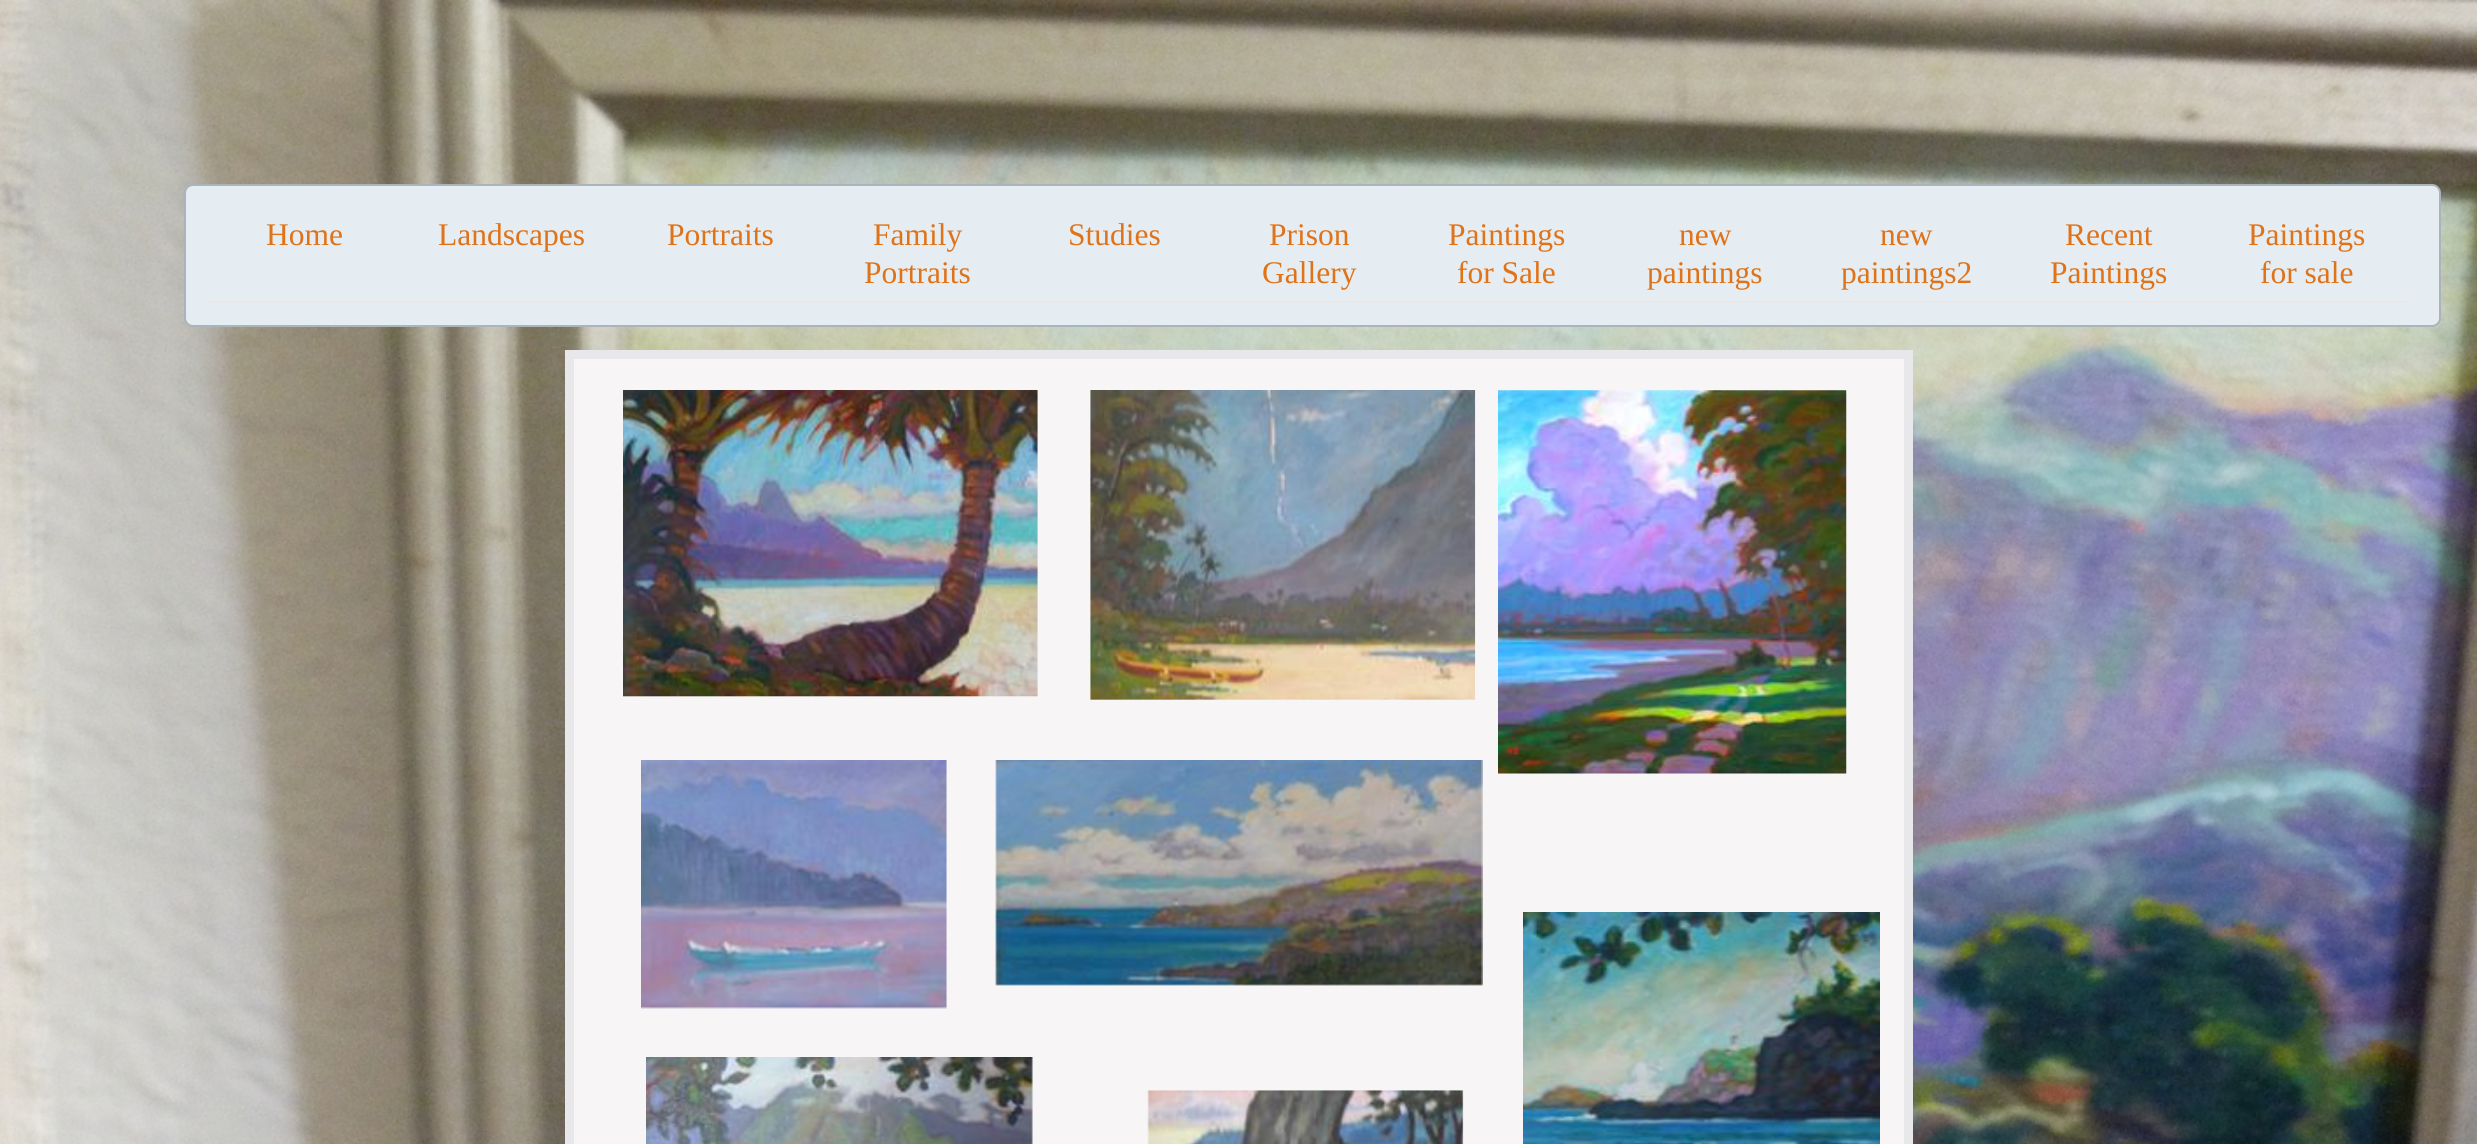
import math
import cairo

surface = cairo.ImageSurface(cairo.FORMAT_RGB24, 2477, 1144)
ctx = cairo.Context(surface)
options = cairo.FontOptions()
options.set_hint_metrics(cairo.HINT_METRICS_OFF)
options.set_hint_style(cairo.HINT_STYLE_NONE)
ctx.set_font_options(options)
ctx.set_miter_limit(4)


def set_color(code):
    ctx.set_source_rgb(*(v / 255 for v in bytes.fromhex(code[-6:])))


def draw_text(x, y, s, family, size, color, bold=False, italic=False):
    ctx.select_font_face(family, cairo.FONT_SLANT_ITALIC if italic else cairo.FONT_SLANT_NORMAL, cairo.FONT_WEIGHT_BOLD if bold else cairo.FONT_WEIGHT_NORMAL)
    ctx.set_font_size(size)
    set_color(color)
    ctx.move_to(x, y)
    ctx.show_text(s)


def fill_rect(x, y, w, h, color):
    set_color(color)
    ctx.rectangle(x, y, w, h)
    ctx.fill()


def rounded_rect(x, y, w, h, r):
    ctx.new_sub_path()
    for i, (u, v) in enumerate([(x + w - r, y + h - r), (x + r, y + h - r), (x + r, y + r), (x + w - r, y + r)]):
        ctx.arc(u, v, r, i * math.pi / 2, (i + 1) * math.pi / 2)
    ctx.close_path()


def draw_image(path, x, y, w, h):
    ctx.save()
    ctx.set_source_surface(cairo.ImageSurface.create_from_png(path), x, y)
    ctx.rectangle(x, y, w, h)
    ctx.fill()
    ctx.restore()


set_color("#ffffff")
ctx.paint()
draw_image("assets/img1.png", 0, 0, 2477, 1144)
set_color("#f7f5f6")
ctx.rectangle(569.5, 354.5, 1339, 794)
ctx.fill_preserve()
set_color("#e8e8ea")
ctx.set_line_width(9)
ctx.stroke()
set_color("#e5edf2")
rounded_rect(185, 185, 2255, 141, 8)
ctx.fill_preserve()
set_color("#a9b4bb")
ctx.set_line_width(2)
ctx.stroke()
fill_rect(208, 301, 2198, 2, "#e8e8ea")
draw_text(266, 245, "Home", "Liberation Serif", 31.5, "#e07218")
draw_text(438, 245, "Landscapes", "Liberation Serif", 31.5, "#e07218")
draw_text(667, 245, "Portraits", "Liberation Serif", 31.5, "#e07218")
draw_text(873, 245, "Family", "Liberation Serif", 31.5, "#e07218")
draw_text(864, 283, "Portraits", "Liberation Serif", 31.5, "#e07218")
draw_text(1068, 245, "Studies", "Liberation Serif", 31.5, "#e07218")
draw_text(1269, 245, "Prison", "Liberation Serif", 31.5, "#e07218")
draw_text(1262, 283, "Gallery", "Liberation Serif", 31.5, "#e07218")
draw_text(1448, 245, "Paintings", "Liberation Serif", 31.5, "#e07218")
draw_text(1457, 283, "for Sale", "Liberation Serif", 31.5, "#e07218")
draw_text(1679, 245, "new", "Liberation Serif", 31.5, "#e07218")
draw_text(1647, 283, "paintings", "Liberation Serif", 31.5, "#e07218")
draw_text(1880, 245, "new", "Liberation Serif", 31.5, "#e07218")
draw_text(1841, 283, "paintings2", "Liberation Serif", 31.5, "#e07218")
draw_text(2065, 245, "Recent", "Liberation Serif", 31.5, "#e07218")
draw_text(2050, 283, "Paintings", "Liberation Serif", 31.5, "#e07218")
draw_text(2248, 245, "Paintings", "Liberation Serif", 31.5, "#e07218")
draw_text(2260, 283, "for sale", "Liberation Serif", 31.5, "#e07218")
draw_image("assets/img2.png", 623, 390, 415, 307)
draw_image("assets/img3.png", 1090, 390, 386, 310)
draw_image("assets/img4.png", 1498, 390, 349, 384)
draw_image("assets/img5.png", 641, 760, 306, 249)
draw_image("assets/img6.png", 995, 760, 488, 226)
draw_image("assets/img7.png", 646, 1057, 387, 87)
draw_image("assets/img8.png", 1147, 1090, 317, 54)
draw_image("assets/img9.png", 1523, 912, 357, 232)
surface.write_to_png("output.png")
